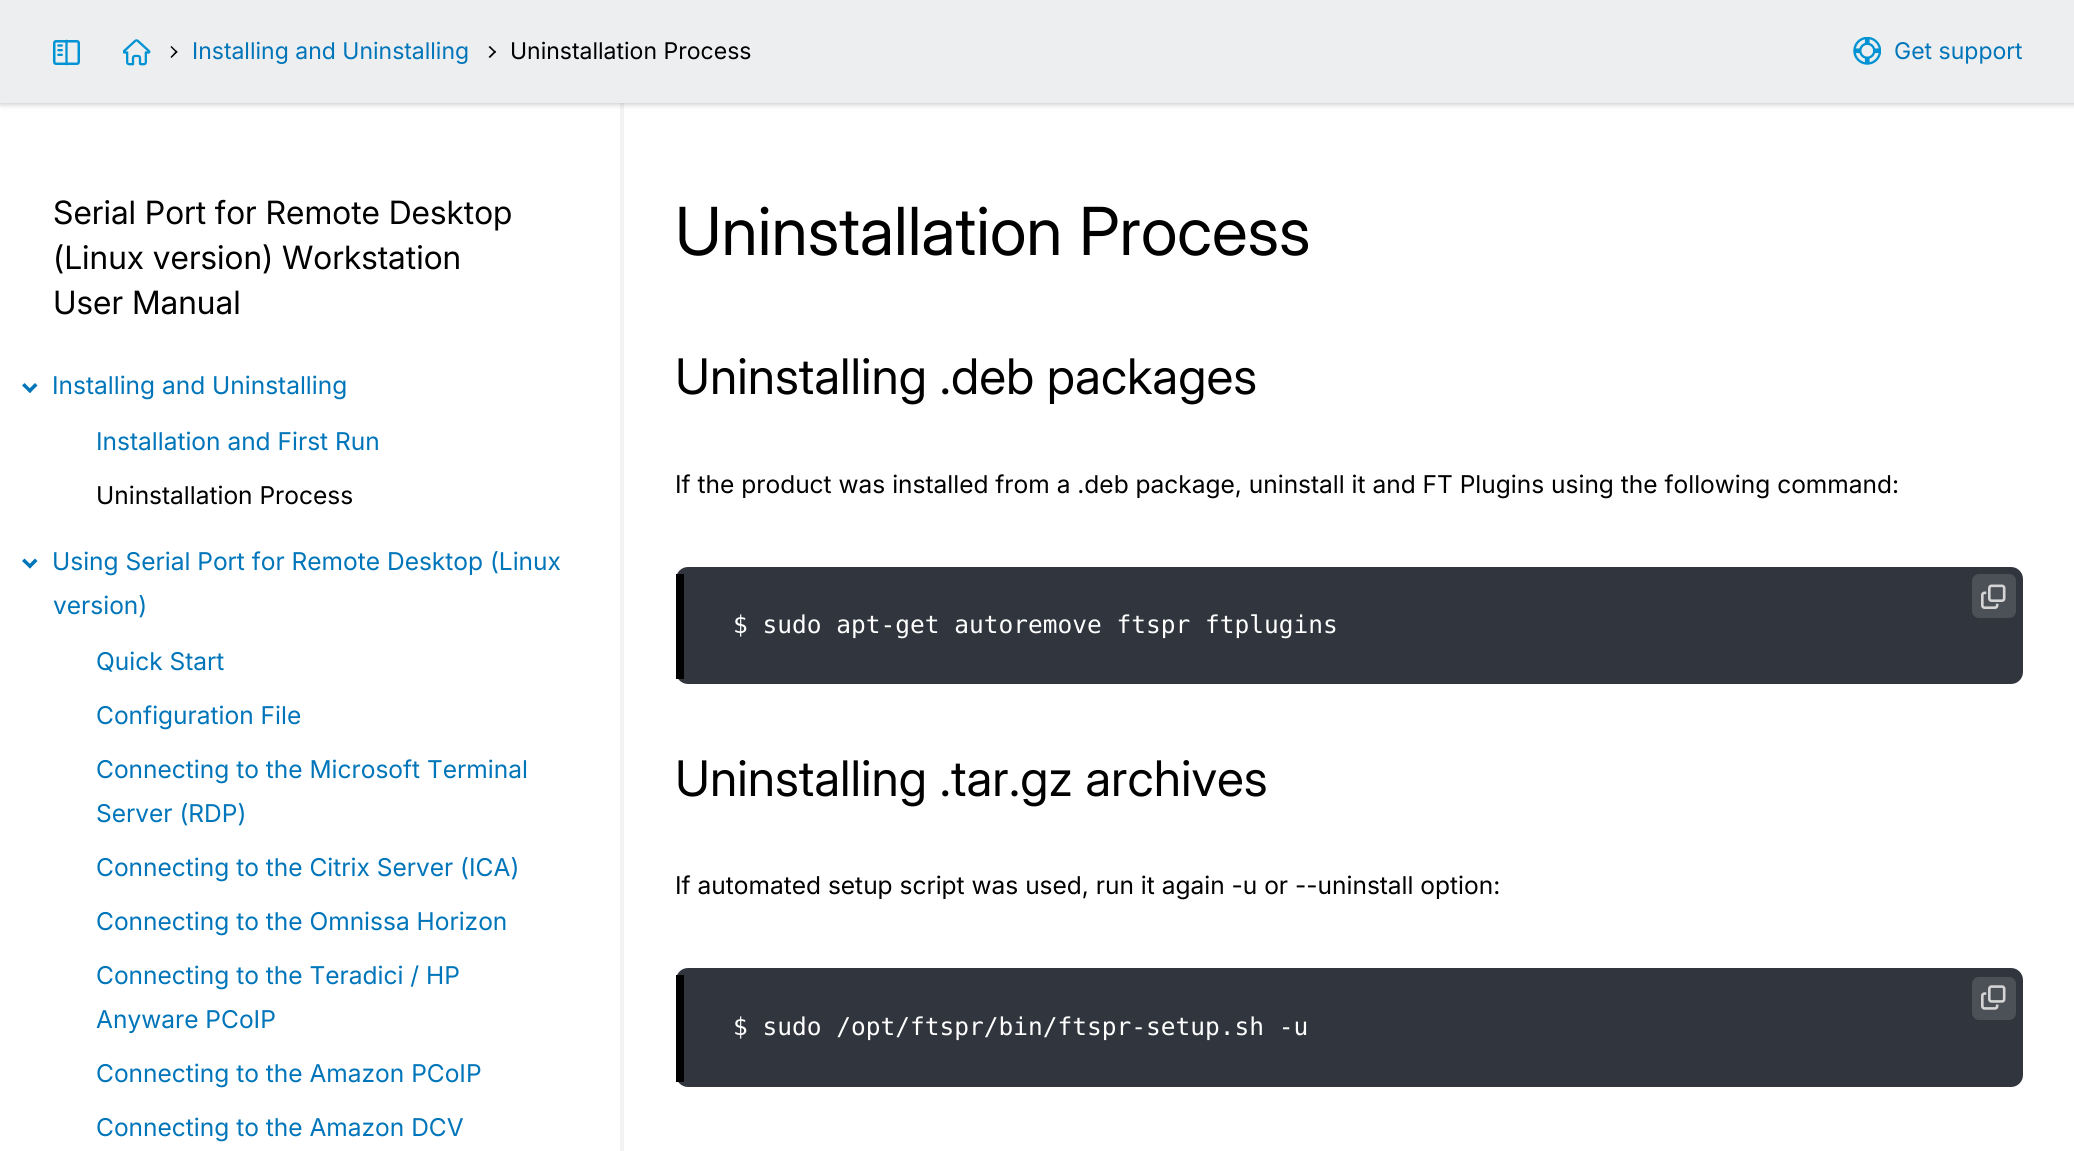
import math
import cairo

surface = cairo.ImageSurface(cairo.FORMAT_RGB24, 2074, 1151)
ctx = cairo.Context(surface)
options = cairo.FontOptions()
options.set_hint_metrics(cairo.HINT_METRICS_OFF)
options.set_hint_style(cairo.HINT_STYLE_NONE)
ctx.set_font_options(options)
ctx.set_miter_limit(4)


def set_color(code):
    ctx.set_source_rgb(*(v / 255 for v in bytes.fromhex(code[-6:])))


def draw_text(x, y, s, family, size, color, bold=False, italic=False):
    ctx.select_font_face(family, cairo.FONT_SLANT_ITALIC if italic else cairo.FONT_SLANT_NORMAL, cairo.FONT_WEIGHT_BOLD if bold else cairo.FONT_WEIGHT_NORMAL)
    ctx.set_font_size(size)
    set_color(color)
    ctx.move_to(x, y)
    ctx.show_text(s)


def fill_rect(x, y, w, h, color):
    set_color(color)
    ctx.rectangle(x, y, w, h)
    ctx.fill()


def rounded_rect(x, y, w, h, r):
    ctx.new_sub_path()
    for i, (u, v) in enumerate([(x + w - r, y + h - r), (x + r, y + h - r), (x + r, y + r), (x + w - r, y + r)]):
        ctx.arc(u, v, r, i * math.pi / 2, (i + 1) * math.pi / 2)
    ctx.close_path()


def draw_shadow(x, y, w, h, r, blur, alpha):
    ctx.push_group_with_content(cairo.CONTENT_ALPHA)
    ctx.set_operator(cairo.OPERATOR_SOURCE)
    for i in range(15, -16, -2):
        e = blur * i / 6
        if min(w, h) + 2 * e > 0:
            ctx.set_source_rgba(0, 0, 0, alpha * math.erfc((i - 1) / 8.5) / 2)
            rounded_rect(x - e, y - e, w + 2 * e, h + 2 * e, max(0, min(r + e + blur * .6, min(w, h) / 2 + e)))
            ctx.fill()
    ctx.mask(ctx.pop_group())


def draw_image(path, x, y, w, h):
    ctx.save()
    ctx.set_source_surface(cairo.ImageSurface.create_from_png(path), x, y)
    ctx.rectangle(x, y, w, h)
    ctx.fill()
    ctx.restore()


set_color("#ffffff")
ctx.paint()
fill_rect(620, 103, 4, 1048, "#f2f2f2")
set_color("#000000")
draw_shadow(0, 0, 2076, 103, 0, 3.5, 0.3)
fill_rect(0, 0, 2074, 103, "#edeeef")
draw_image("assets/img1.png", 53, 39, 27, 27)
draw_image("assets/img2.png", 123, 39, 28, 27)
set_color("#000000")
ctx.new_path()
ctx.move_to(170.5, 47)
ctx.line_to(171.5, 46)
ctx.line_to(177.5, 52)
ctx.line_to(176.5, 53)
ctx.close_path()
ctx.fill()
ctx.new_path()
ctx.move_to(170.5, 57)
ctx.line_to(176.5, 50.5)
ctx.line_to(177.5, 52)
ctx.line_to(171.5, 58)
ctx.close_path()
ctx.fill()
draw_text(192, 59, "Installing and Uninstalling", "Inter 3", 23, "#0075b9")
set_color("#000000")
ctx.new_path()
ctx.move_to(488.5, 47)
ctx.line_to(490, 46)
ctx.line_to(496, 52)
ctx.line_to(495, 53)
ctx.close_path()
ctx.fill()
ctx.new_path()
ctx.move_to(488.5, 57)
ctx.line_to(495, 50.5)
ctx.line_to(496, 52)
ctx.line_to(490, 58)
ctx.close_path()
ctx.fill()
draw_text(510, 59, "Uninstallation Process", "Inter 3", 23, "#000000")
draw_image("assets/img3.png", 1853, 37, 28, 28)
draw_text(1894, 59, "Get support", "Inter 3", 23, "#0075b9")
draw_text(53, 224, "Serial Port for Remote Desktop", "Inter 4", 32.1, "#000000")
draw_text(53, 269, "(Linux version) Workstation", "Inter 4", 32.1, "#000000")
draw_text(53, 314, "User Manual", "Inter 4", 32.1, "#000000")
set_color("#0075b9")
ctx.new_path()
ctx.move_to(35, 383)
ctx.line_to(37.5, 385.5)
ctx.line_to(30, 393)
ctx.line_to(27.5, 390.5)
ctx.close_path()
ctx.fill()
ctx.new_path()
ctx.move_to(24.5, 383)
ctx.line_to(32, 390.5)
ctx.line_to(30, 393)
ctx.line_to(22, 385.5)
ctx.close_path()
ctx.fill()
draw_text(52, 394, "Installing and Uninstalling", "Inter 3", 24.5, "#0075b9")
draw_text(96, 450, "Installation and First Run", "Inter 3", 24.5, "#0075b9")
draw_text(96, 504, "Uninstallation Process", "Inter 3", 24.5, "#000000")
set_color("#0075b9")
ctx.new_path()
ctx.move_to(35, 558.5)
ctx.line_to(37.5, 561)
ctx.line_to(30, 568.5)
ctx.line_to(27.5, 566)
ctx.close_path()
ctx.fill()
ctx.new_path()
ctx.move_to(24.5, 558.5)
ctx.line_to(32, 566)
ctx.line_to(30, 568.5)
ctx.line_to(22, 561)
ctx.close_path()
ctx.fill()
draw_text(52, 570, "Using Serial Port for Remote Desktop (Linux", "Inter 3", 24.5, "#0075b9")
draw_text(53, 614, "version)", "Inter 3", 24.5, "#0075b9")
draw_text(96, 670, "Quick Start", "Inter 3", 24.5, "#0075b9")
draw_text(96, 724, "Configuration File", "Inter 3", 24.5, "#0075b9")
draw_text(96, 778, "Connecting to the Microsoft Terminal", "Inter 3", 24.5, "#0075b9")
draw_text(96, 822, "Server (RDP)", "Inter 3", 24.5, "#0075b9")
draw_text(96, 876, "Connecting to the Citrix Server (ICA)", "Inter 3", 24.5, "#0075b9")
draw_text(96, 930, "Connecting to the Omnissa Horizon", "Inter 3", 24.5, "#0075b9")
draw_text(96, 984, "Connecting to the Teradici / HP", "Inter 3", 24.5, "#0075b9")
draw_text(96, 1028, "Anyware PCoIP", "Inter 3", 24.5, "#0075b9")
draw_text(96, 1082, "Connecting to the Amazon PCoIP", "Inter 3", 24.5, "#0075b9")
draw_text(96, 1136, "Connecting to the Amazon DCV", "Inter 3", 24.5, "#0075b9")
draw_text(675, 255, "Uninstallation Process", "Inter", 66.25, "#000000")
draw_text(675, 394, "Uninstalling .deb packages", "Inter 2", 49, "#000000")
draw_text(675, 493, "If the product was installed from a .deb package, uninstall it and FT Plugins using the following command:", "Inter 3", 24.5, "#000000")
set_color("#31363e")
rounded_rect(676, 567, 1347, 117, 12)
ctx.fill()
set_color("#4c5057")
rounded_rect(1972, 574, 44, 44, 7)
ctx.fill()
draw_image("assets/img4.png", 1981, 584, 25, 25)
fill_rect(676, 574, 8, 105, "#000000")
draw_text(733, 633, "$ sudo apt-get autoremove ftspr ftplugins", "DejaVu Sans Mono", 24.5, "#ffffff")
draw_text(675, 796, "Uninstalling .tar.gz archives", "Inter 2", 49, "#000000")
draw_text(675, 894, "If automated setup script was used, run it again -u or --uninstall option:", "Inter 3", 24.5, "#000000")
set_color("#31363e")
rounded_rect(676, 968, 1347, 119, 12)
ctx.fill()
set_color("#4c5057")
rounded_rect(1972, 977, 44, 43, 7)
ctx.fill()
draw_image("assets/img5.png", 1981, 985, 25, 25)
fill_rect(676, 975, 8, 107, "#000000")
draw_text(733, 1035, "$ sudo /opt/ftspr/bin/ftspr-setup.sh -u", "DejaVu Sans Mono", 24.5, "#ffffff")
surface.write_to_png("output.png")
